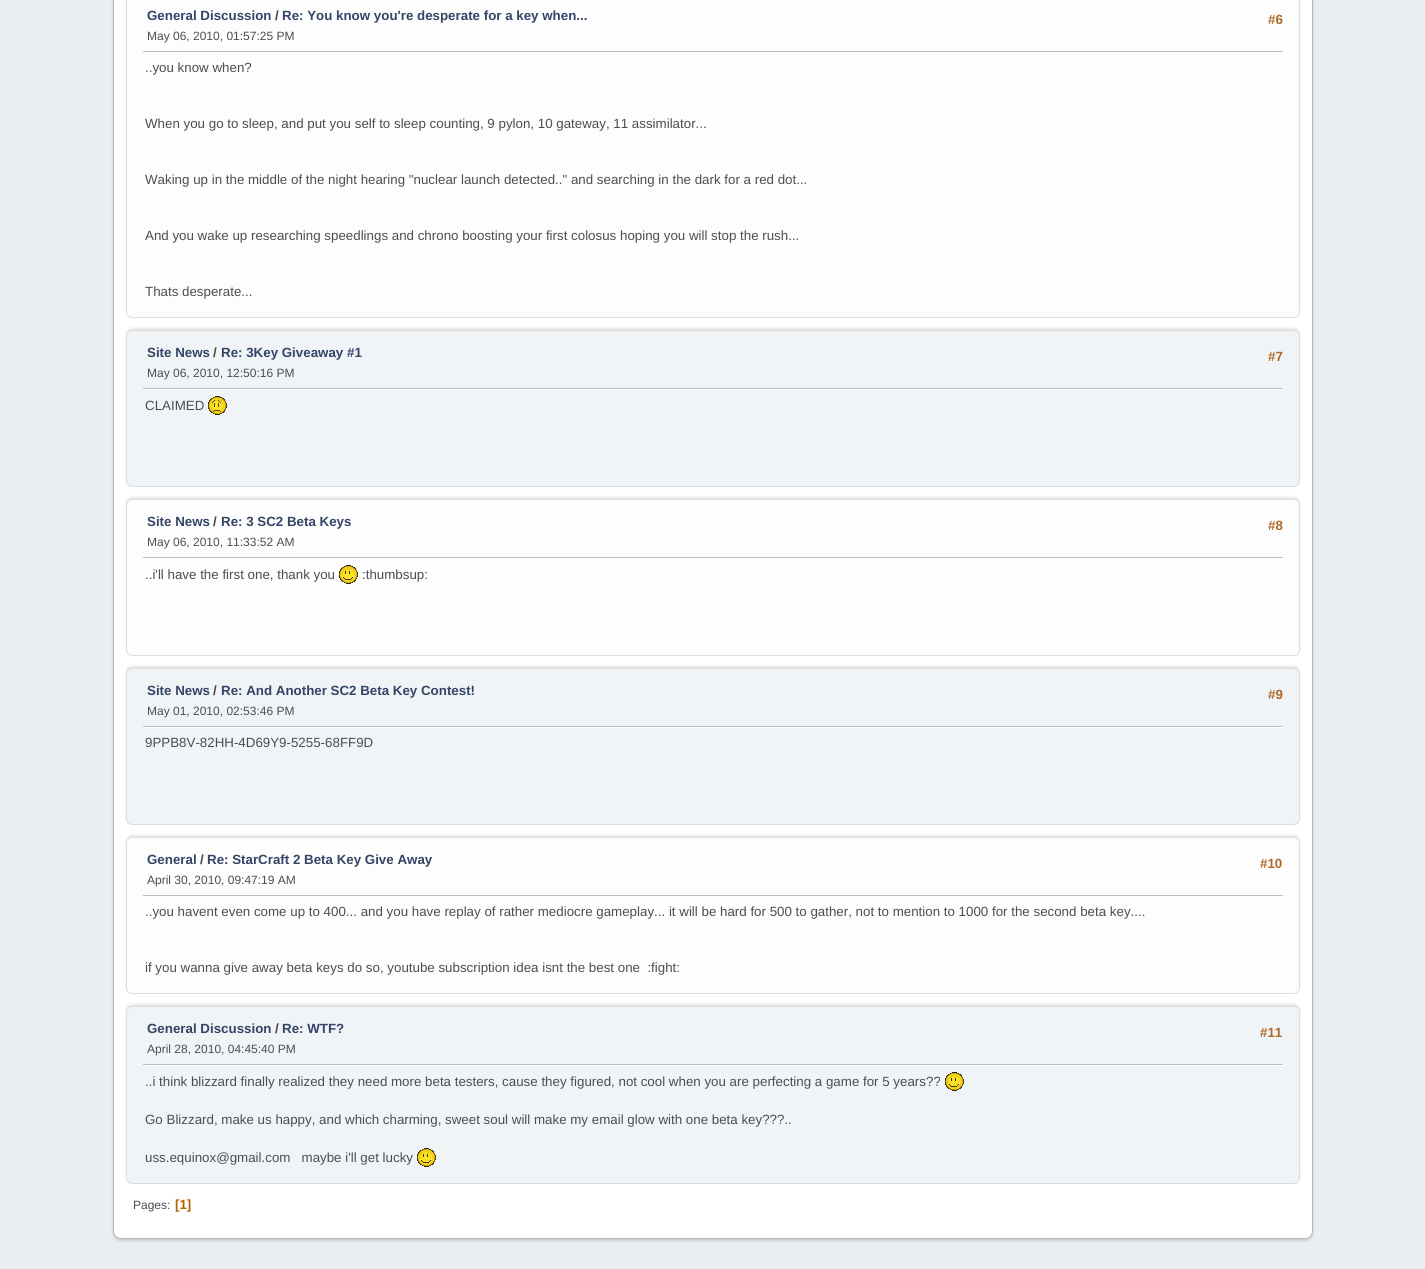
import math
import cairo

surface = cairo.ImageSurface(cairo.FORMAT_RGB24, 1425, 1269)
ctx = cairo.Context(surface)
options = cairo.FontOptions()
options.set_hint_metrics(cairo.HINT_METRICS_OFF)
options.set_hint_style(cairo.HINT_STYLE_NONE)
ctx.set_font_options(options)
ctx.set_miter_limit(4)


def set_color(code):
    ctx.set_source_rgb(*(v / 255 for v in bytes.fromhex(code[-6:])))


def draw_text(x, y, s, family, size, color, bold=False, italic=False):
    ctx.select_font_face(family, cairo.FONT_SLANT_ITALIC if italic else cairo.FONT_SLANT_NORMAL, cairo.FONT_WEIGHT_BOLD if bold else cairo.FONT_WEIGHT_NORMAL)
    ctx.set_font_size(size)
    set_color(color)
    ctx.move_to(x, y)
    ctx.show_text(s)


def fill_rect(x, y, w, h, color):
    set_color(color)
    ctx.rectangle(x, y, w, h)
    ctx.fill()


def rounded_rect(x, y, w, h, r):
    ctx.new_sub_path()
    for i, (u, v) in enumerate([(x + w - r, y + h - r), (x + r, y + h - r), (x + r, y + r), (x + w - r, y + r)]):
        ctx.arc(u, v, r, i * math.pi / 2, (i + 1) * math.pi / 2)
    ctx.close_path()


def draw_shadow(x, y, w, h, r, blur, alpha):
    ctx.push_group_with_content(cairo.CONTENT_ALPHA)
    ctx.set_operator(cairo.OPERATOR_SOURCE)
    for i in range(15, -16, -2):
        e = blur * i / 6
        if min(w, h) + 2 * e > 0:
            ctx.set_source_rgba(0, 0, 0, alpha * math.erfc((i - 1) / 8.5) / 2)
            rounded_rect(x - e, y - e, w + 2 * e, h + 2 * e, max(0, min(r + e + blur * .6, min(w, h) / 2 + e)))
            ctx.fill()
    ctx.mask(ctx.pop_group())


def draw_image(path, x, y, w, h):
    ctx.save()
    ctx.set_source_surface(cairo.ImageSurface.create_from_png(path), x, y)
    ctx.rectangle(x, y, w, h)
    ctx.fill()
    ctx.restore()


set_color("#e9eef2")
ctx.paint()
set_color("#000000")
draw_shadow(113, -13, 1200, 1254, 8, 1.5, 0.14)
set_color("#ffffff")
rounded_rect(113.5, -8.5, 1199, 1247, 7.5)
ctx.fill_preserve()
set_color("#b8b8b8")
ctx.set_line_width(1)
ctx.stroke()
set_color("#000000")
draw_shadow(126, -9, 1174, 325, 6, 1, 0.1)
set_color("#fdfdfd")
rounded_rect(126.5, -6.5, 1173, 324, 5.5)
ctx.fill_preserve()
set_color("#dddddd")
ctx.stroke()
draw_text(147, 20, "General Discussion", "Liberation Sans", 13.33, "#334466", bold=True)
draw_text(275, 20, "/", "Liberation Sans", 13.33, "#444444", bold=True)
draw_text(282, 20, "Re: You know you're desperate for a key when...", "Liberation Sans", 13.33, "#334466", bold=True)
draw_text(147, 40, "May 06, 2010, 01:57:25 PM", "Liberation Sans", 12, "#4d4d4d")
draw_text(1268, 24, "#6", "Liberation Sans", 13.33, "#ad6825", bold=True)
fill_rect(143, 51, 1140, 1, "#bfbfbf")
draw_text(145, 72, "..you know when?", "Liberation Sans", 13.33, "#4d4d4d")
draw_text(145, 128, "When you go to sleep, and put you self to sleep counting, 9 pylon, 10 gateway, 11 assimilator...", "Liberation Sans", 13.33, "#4d4d4d")
draw_text(145, 184, "Waking up in the middle of the night hearing \"nuclear launch detected..\" and searching in the dark for a red dot...", "Liberation Sans", 13.33, "#4d4d4d")
draw_text(145, 240, "And you wake up researching speedlings and chrono boosting your first colosus hoping you will stop the rush...", "Liberation Sans", 13.33, "#4d4d4d")
draw_text(145, 296, "Thats desperate...", "Liberation Sans", 13.33, "#4d4d4d")
set_color("#000000")
draw_shadow(126, 328, 1174, 157, 6, 1, 0.1)
set_color("#f0f4f7")
rounded_rect(126.5, 330.5, 1173, 156, 5.5)
ctx.fill_preserve()
set_color("#dddddd")
ctx.stroke()
draw_text(147, 357, "Site News", "Liberation Sans", 13.33, "#334466", bold=True)
draw_text(213, 357, "/", "Liberation Sans", 13.33, "#444444", bold=True)
draw_text(221, 357, "Re: 3Key Giveaway #1", "Liberation Sans", 13.33, "#334466", bold=True)
draw_text(147, 377, "May 06, 2010, 12:50:16 PM", "Liberation Sans", 12, "#4d4d4d")
draw_text(1268, 361, "#7", "Liberation Sans", 13.33, "#ad6825", bold=True)
fill_rect(143, 389, 1140, 1, "#ffffff")
fill_rect(143, 388, 1140, 1, "#bfbfbf")
draw_text(145, 410, "CLAIMED", "Liberation Sans", 13.33, "#4d4d4d")
draw_image("assets/img1.png", 208, 396, 19, 19)
set_color("#000000")
draw_shadow(126, 497, 1174, 157, 6, 1, 0.1)
set_color("#fdfdfd")
rounded_rect(126.5, 499.5, 1173, 156, 5.5)
ctx.fill_preserve()
set_color("#dddddd")
ctx.stroke()
draw_text(147, 526, "Site News", "Liberation Sans", 13.33, "#334466", bold=True)
draw_text(213, 526, "/", "Liberation Sans", 13.33, "#444444", bold=True)
draw_text(221, 526, "Re: 3 SC2 Beta Keys", "Liberation Sans", 13.33, "#334466", bold=True)
draw_text(147, 546, "May 06, 2010, 11:33:52 AM", "Liberation Sans", 12, "#4d4d4d")
draw_text(1268, 530, "#8", "Liberation Sans", 13.33, "#ad6825", bold=True)
fill_rect(143, 557, 1140, 1, "#bfbfbf")
draw_text(145, 579, "..i'll have the first one, thank you", "Liberation Sans", 13.33, "#4d4d4d")
draw_image("assets/img2.png", 339, 565, 19, 19)
draw_text(362, 579, ":thumbsup:", "Liberation Sans", 13.33, "#4d4d4d")
set_color("#000000")
draw_shadow(126, 666, 1174, 157, 6, 1, 0.1)
set_color("#f0f4f7")
rounded_rect(126.5, 668.5, 1173, 156, 5.5)
ctx.fill_preserve()
set_color("#dddddd")
ctx.stroke()
draw_text(147, 695, "Site News", "Liberation Sans", 13.33, "#334466", bold=True)
draw_text(213, 695, "/", "Liberation Sans", 13.33, "#444444", bold=True)
draw_text(221, 695, "Re: And Another SC2 Beta Key Contest!", "Liberation Sans", 13.33, "#334466", bold=True)
draw_text(147, 715, "May 01, 2010, 02:53:46 PM", "Liberation Sans", 12, "#4d4d4d")
draw_text(1268, 699, "#9", "Liberation Sans", 13.33, "#ad6825", bold=True)
fill_rect(143, 727, 1140, 1, "#ffffff")
fill_rect(143, 726, 1140, 1, "#bfbfbf")
draw_text(145, 747, "9PPB8V-82HH-4D69Y9-5255-68FF9D", "Liberation Sans", 13.33, "#4d4d4d")
set_color("#000000")
draw_shadow(126, 835, 1174, 157, 6, 1, 0.1)
set_color("#fdfdfd")
rounded_rect(126.5, 837.5, 1173, 156, 5.5)
ctx.fill_preserve()
set_color("#dddddd")
ctx.stroke()
draw_text(147, 864, "General", "Liberation Sans", 13.33, "#334466", bold=True)
draw_text(200, 864, "/", "Liberation Sans", 13.33, "#444444", bold=True)
draw_text(207, 864, "Re: StarCraft 2 Beta Key Give Away", "Liberation Sans", 13.33, "#334466", bold=True)
draw_text(147, 884, "April 30, 2010, 09:47:19 AM", "Liberation Sans", 12, "#4d4d4d")
draw_text(1260, 868, "#10", "Liberation Sans", 13.33, "#ad6825", bold=True)
fill_rect(143, 895, 1140, 1, "#bfbfbf")
draw_text(145, 916, "..you havent even come up to 400... and you have replay of rather mediocre gameplay... it will be hard for 500 to gather, not to mention to 1000 for the second beta key....", "Liberation Sans", 13.33, "#4d4d4d")
draw_text(145, 972, "if you wanna give away beta keys do so, youtube subscription idea isnt the best one  :fight:", "Liberation Sans", 13.33, "#4d4d4d")
set_color("#000000")
draw_shadow(126, 1004, 1174, 178, 6, 1, 0.1)
set_color("#f0f4f7")
rounded_rect(126.5, 1006.5, 1173, 177, 5.5)
ctx.fill_preserve()
set_color("#dddddd")
ctx.stroke()
draw_text(147, 1033, "General Discussion", "Liberation Sans", 13.33, "#334466", bold=True)
draw_text(275, 1033, "/", "Liberation Sans", 13.33, "#444444", bold=True)
draw_text(282, 1033, "Re: WTF?", "Liberation Sans", 13.33, "#334466", bold=True)
draw_text(147, 1053, "April 28, 2010, 04:45:40 PM", "Liberation Sans", 12, "#4d4d4d")
draw_text(1260, 1037, "#11", "Liberation Sans", 13.33, "#ad6825", bold=True)
fill_rect(143, 1065, 1140, 1, "#ffffff")
fill_rect(143, 1064, 1140, 1, "#bfbfbf")
draw_text(145, 1086, "..i think blizzard finally realized they need more beta testers, cause they figured, not cool when you are perfecting a game for 5 years??", "Liberation Sans", 13.33, "#4d4d4d")
draw_image("assets/img3.png", 945, 1072, 19, 19)
draw_text(145, 1124, "Go Blizzard, make us happy, and which charming, sweet soul will make my email glow with one beta key???..", "Liberation Sans", 13.33, "#4d4d4d")
draw_text(145, 1162, "uss.equinox@gmail.com   maybe i'll get lucky", "Liberation Sans", 13.33, "#4d4d4d")
draw_image("assets/img3.png", 417, 1148, 19, 19)
draw_text(133, 1209, "Pages:", "Liberation Sans", 12, "#4d4d4d")
draw_text(175, 1209, "[1]", "Liberation Sans", 13.33, "#b46100", bold=True)
surface.write_to_png("output.png")
